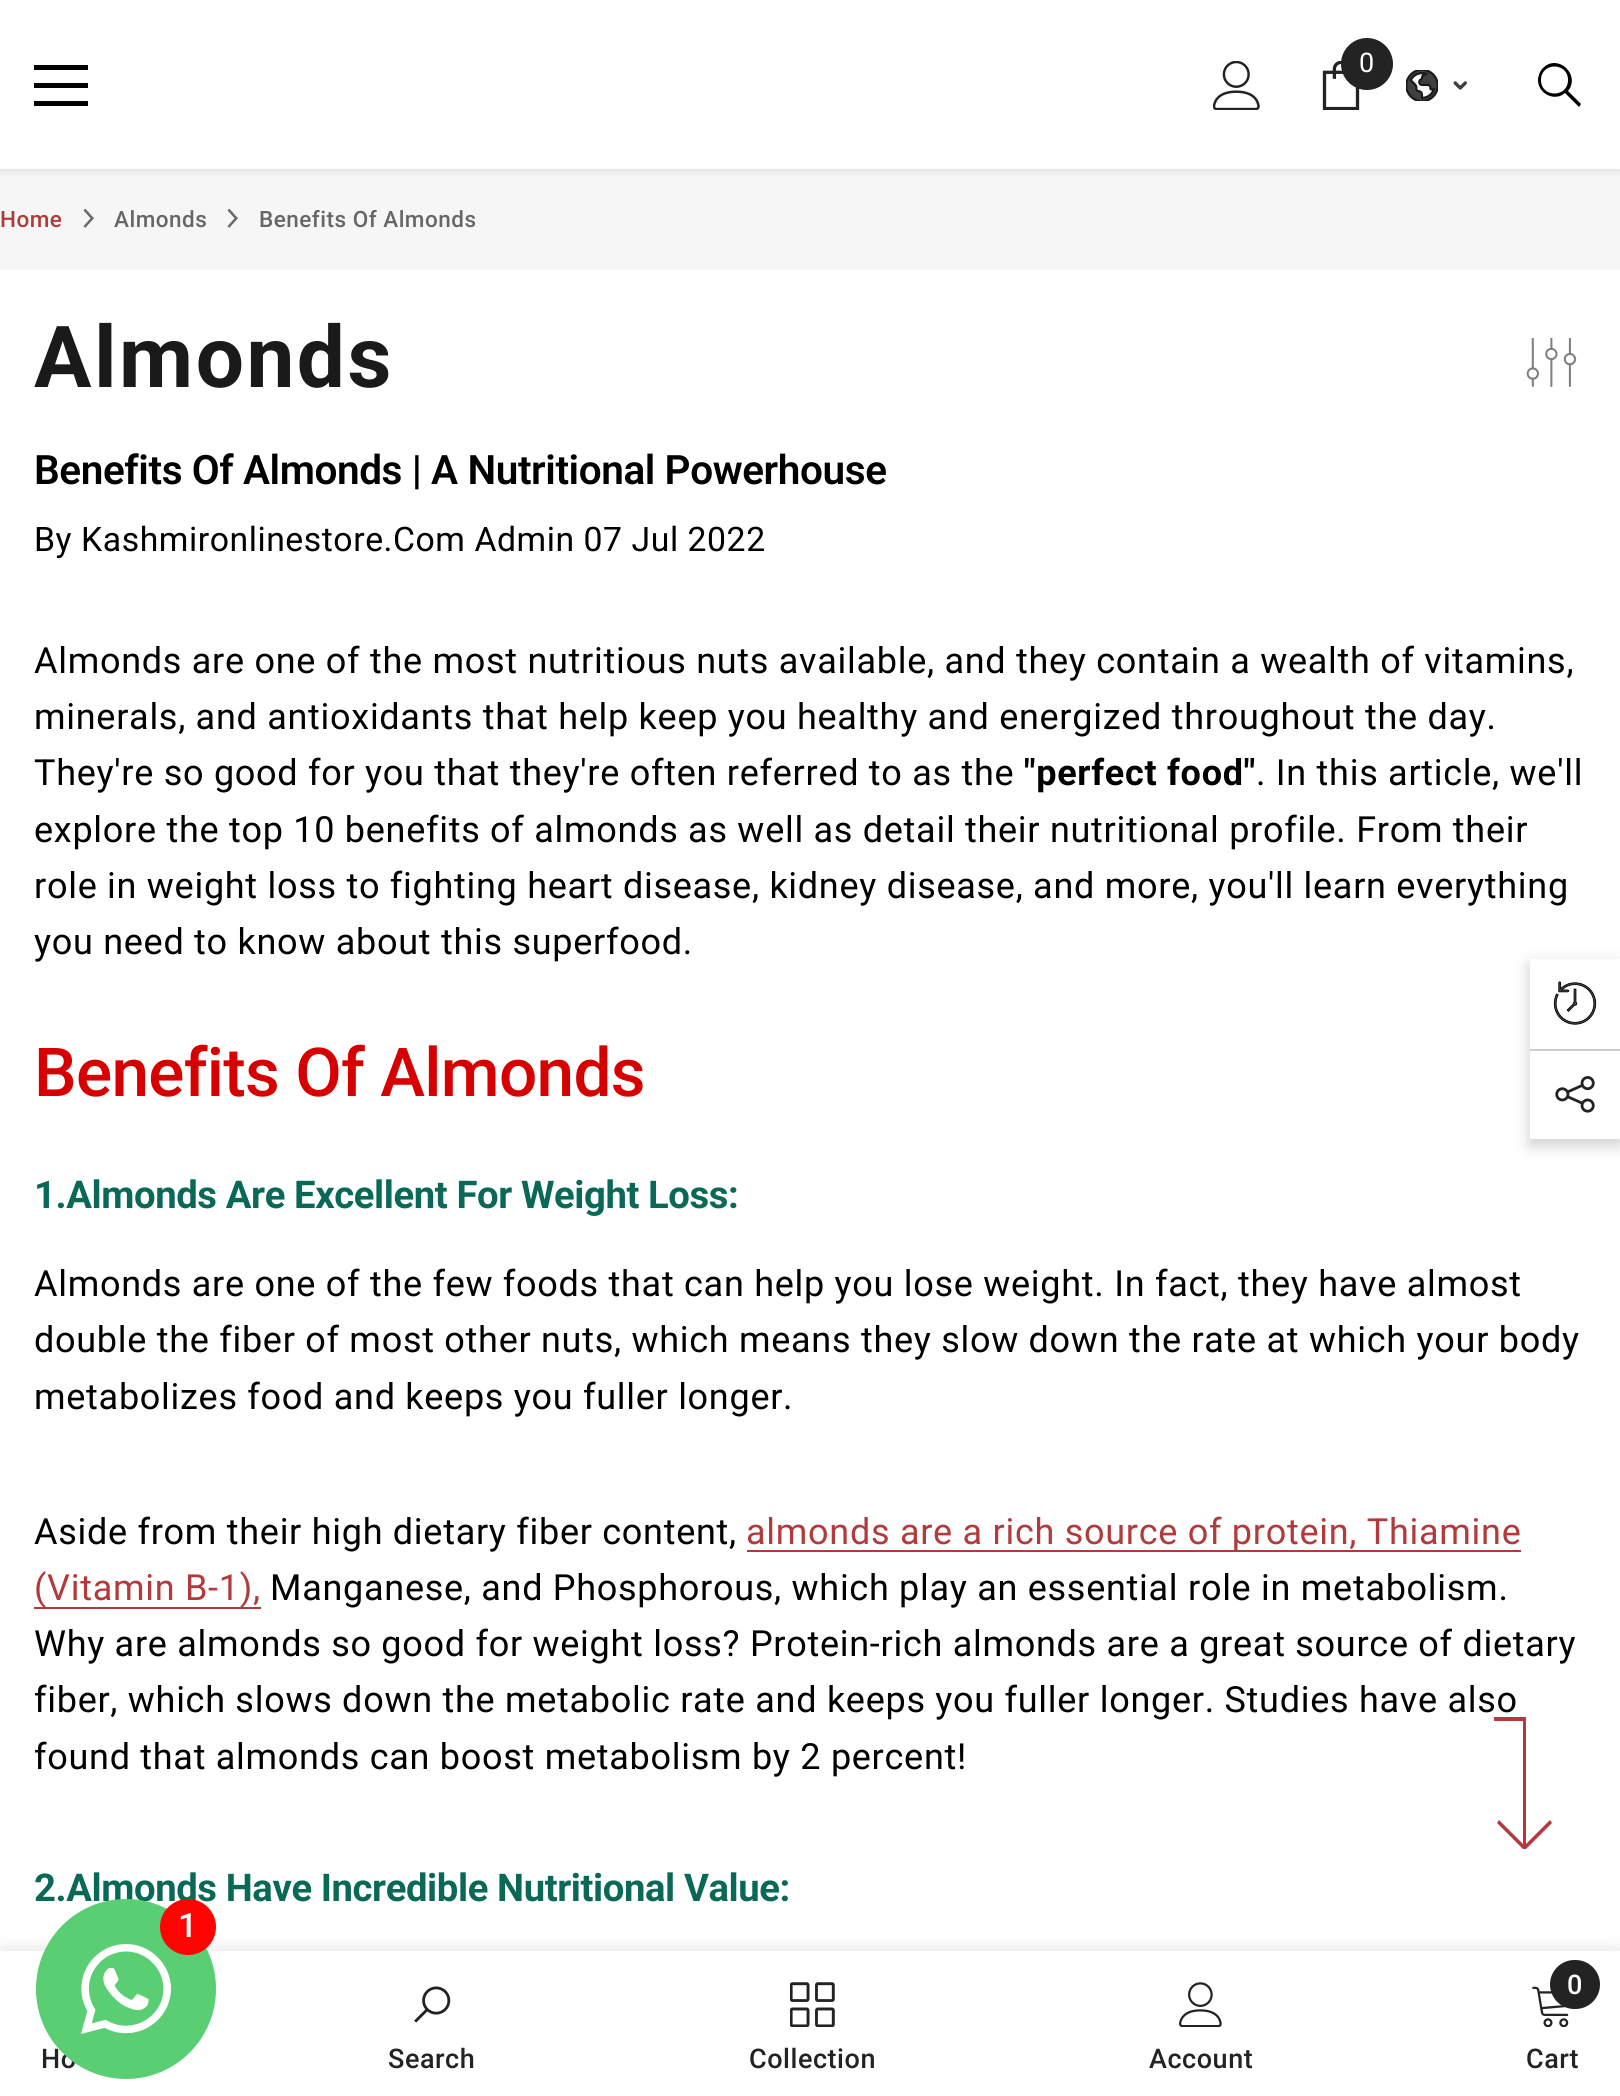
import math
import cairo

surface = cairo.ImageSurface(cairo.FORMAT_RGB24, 1620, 2096)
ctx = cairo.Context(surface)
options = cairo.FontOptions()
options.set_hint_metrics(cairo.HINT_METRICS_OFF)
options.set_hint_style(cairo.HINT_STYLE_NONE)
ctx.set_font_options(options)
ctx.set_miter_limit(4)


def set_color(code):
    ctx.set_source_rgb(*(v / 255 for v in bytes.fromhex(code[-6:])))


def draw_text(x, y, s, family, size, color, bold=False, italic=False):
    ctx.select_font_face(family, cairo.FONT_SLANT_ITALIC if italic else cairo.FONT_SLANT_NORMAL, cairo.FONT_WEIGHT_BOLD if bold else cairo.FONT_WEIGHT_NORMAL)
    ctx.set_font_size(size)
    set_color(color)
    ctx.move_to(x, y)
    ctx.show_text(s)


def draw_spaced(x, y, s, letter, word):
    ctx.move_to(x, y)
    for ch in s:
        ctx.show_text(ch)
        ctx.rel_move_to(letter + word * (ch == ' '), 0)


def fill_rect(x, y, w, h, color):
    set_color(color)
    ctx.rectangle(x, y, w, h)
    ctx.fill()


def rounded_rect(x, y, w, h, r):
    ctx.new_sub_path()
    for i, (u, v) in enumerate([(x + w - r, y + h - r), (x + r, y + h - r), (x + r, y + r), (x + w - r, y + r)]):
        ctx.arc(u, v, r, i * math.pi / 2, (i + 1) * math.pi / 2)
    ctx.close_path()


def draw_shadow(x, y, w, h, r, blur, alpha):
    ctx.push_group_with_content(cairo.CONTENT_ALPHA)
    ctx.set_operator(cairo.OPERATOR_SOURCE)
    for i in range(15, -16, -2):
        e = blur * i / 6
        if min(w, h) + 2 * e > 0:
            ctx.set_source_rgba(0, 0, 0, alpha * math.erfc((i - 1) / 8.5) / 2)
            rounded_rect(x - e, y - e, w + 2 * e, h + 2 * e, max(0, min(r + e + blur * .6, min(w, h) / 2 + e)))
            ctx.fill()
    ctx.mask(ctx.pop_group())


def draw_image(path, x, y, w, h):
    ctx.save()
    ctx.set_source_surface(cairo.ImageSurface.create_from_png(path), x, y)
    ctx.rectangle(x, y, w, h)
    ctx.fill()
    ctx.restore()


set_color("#ffffff")
ctx.paint()
fill_rect(0, 169, 1620, 101, "#f6f6f6")
set_color("#000000")
draw_shadow(0, 2, 1620, 169, 0, 3.5, 0.1)
fill_rect(0, 0, 1620, 169, "#ffffff")
fill_rect(34, 83, 54, 5, "#000000")
fill_rect(34, 65, 54, 5, "#000000")
fill_rect(34, 101, 54, 5, "#000000")
draw_image("assets/img1.png", 1213, 61, 47, 49)
draw_image("assets/img2.png", 1322, 61, 38, 49)
set_color("#232323")
ctx.arc(1367, 64, 26, 0, 2 * math.pi)
ctx.fill()
draw_text(1359, 72, "0", "Roboto", 27, "#ffffff")
draw_image("assets/img3.png", 1406, 70, 32, 31)
draw_image("assets/img4.png", 1453, 81, 14, 9)
set_color("#000000")
ctx.new_path()
ctx.move_to(1538, 80)
ctx.curve_to(1538, 94, 1555, 102, 1565, 93)
ctx.line_to(1579, 107)
ctx.line_to(1581, 104)
ctx.line_to(1568, 91)
ctx.curve_to(1581, 75, 1558, 53, 1543, 68)
ctx.curve_to(1540, 71, 1538, 76, 1538, 80)
ctx.close_path()
ctx.move_to(1541, 80)
ctx.curve_to(1541, 62, 1568, 62, 1568, 80)
ctx.curve_to(1568, 98, 1541, 98, 1541, 80)
ctx.close_path()
ctx.fill()
ctx.select_font_face("Roboto Medium")
ctx.set_font_size(22.5)
set_color("#b33a3a")
draw_spaced(0, 227, "Home", 0.5, 0)
draw_image("assets/img5.png", 83, 208, 11, 20)
set_color("#666666")
draw_spaced(114, 227, "Almonds", 0.5, 0)
draw_image("assets/img5.png", 227, 208, 11, 20)
draw_spaced(259, 227, "Benefits Of Almonds", 0.5, 0)
ctx.select_font_face("Roboto", cairo.FONT_SLANT_NORMAL, cairo.FONT_WEIGHT_BOLD)
ctx.set_font_size(85.5)
set_color("#1a1a1a")
draw_spaced(34, 387, "Almonds", 2.5, 0)
draw_image("assets/img6.png", 1526, 338, 51, 49)
ctx.select_font_face("Roboto SemiBold")
ctx.set_font_size(40.5)
set_color("#000000")
draw_spaced(34, 484, "Benefits Of Almonds | A Nutritional Powerhouse", -0.4, 0)
ctx.select_font_face("Roboto")
ctx.set_font_size(33.75)
draw_spaced(34, 551, "By Kashmironlinestore.Com Admin 07 Jul 2022", 0.55, 0)
ctx.set_font_size(36)
draw_spaced(34, 673, "Almonds are one of the most nutritious nuts available, and they contain a wealth of vitamins,", 0.72, 0)
draw_spaced(34, 729, "minerals, and antioxidants that help keep you healthy and energized throughout the day.", 0.72, 0)
draw_spaced(34, 785, "They're so good for you that they're often referred to as the", 0.72, 0)
ctx.select_font_face("Roboto", cairo.FONT_SLANT_NORMAL, cairo.FONT_WEIGHT_BOLD)
draw_spaced(1024, 785, "\"perfect food\"", 0.72, 0)
ctx.select_font_face("Roboto")
draw_spaced(1256, 785, ". In this article, we'll", 0.72, 0)
draw_spaced(34, 842, "explore the top 10 benefits of almonds as well as detail their nutritional profile. From their", 0.72, 0)
draw_spaced(34, 898, "role in weight loss to fighting heart disease, kidney disease, and more, you'll learn everything", 0.72, 0)
draw_spaced(34, 954, "you need to know about this superfood.", 0.72, 0)
ctx.select_font_face("Roboto Medium")
ctx.set_font_size(67.5)
set_color("#d70000")
draw_spaced(34, 1096, "Benefits Of Almonds", -0.7, 0)
ctx.select_font_face("Roboto", cairo.FONT_SLANT_NORMAL, cairo.FONT_WEIGHT_BOLD)
ctx.set_font_size(38.25)
set_color("#0a6857")
draw_spaced(34, 1208, "1.Almonds Are Excellent For Weight Loss:", -0.4, 0)
ctx.select_font_face("Roboto")
ctx.set_font_size(36)
set_color("#000000")
draw_spaced(34, 1296, "Almonds are one of the few foods that can help you lose weight. In fact, they have almost", 0.72, 0)
draw_spaced(34, 1352, "double the fiber of most other nuts, which means they slow down the rate at which your body", 0.72, 0)
draw_spaced(34, 1409, "metabolizes food and keeps you fuller longer.", 0.72, 0)
draw_spaced(34, 1544, "Aside from their high dietary fiber content,", 0.72, 0)
fill_rect(747, 1550, 774, 2, "#b33a3a")
draw_spaced(746, 1544, "almonds are a rich source of protein, Thiamine", 0.72, 0)
fill_rect(34, 1607, 227, 2, "#b33a3a")
draw_spaced(34, 1600, "(Vitamin B-1),", 0.72, 0)
set_color("#000000")
draw_spaced(270, 1600, "Manganese, and Phosphorous, which play an essential role in metabolism.", 0.72, 0)
draw_spaced(34, 1656, "Why are almonds so good for weight loss? Protein-rich almonds are a great source of dietary", 0.72, 0)
draw_spaced(34, 1712, "fiber, which slows down the metabolic rate and keeps you fuller longer. Studies have also", 0.72, 0)
draw_spaced(34, 1769, "found that almonds can boost metabolism by 2 percent!", 0.72, 0)
ctx.select_font_face("Roboto", cairo.FONT_SLANT_NORMAL, cairo.FONT_WEIGHT_BOLD)
ctx.set_font_size(38.25)
set_color("#0a6857")
draw_spaced(34, 1901, "2.Almonds Have Incredible Nutritional Value:", -0.4, 0)
set_color("#000000")
draw_shadow(0, 1951, 1620, 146, 0, 10, 0.12)
fill_rect(0, 1951, 1620, 145, "#ffffff")
ctx.select_font_face("Roboto Medium")
ctx.set_font_size(27)
set_color("#232323")
draw_spaced(41, 2068, "Ho", 0.55, 0)
draw_image("assets/img7.png", 414, 1986, 37, 37)
draw_spaced(388, 2068, "Search", 0.55, 0)
draw_image("assets/img8.png", 790, 1982, 45, 45)
draw_spaced(749, 2068, "Collection", 0.55, 0)
draw_image("assets/img9.png", 1179, 1982, 43, 45)
draw_spaced(1149, 2068, "Account", 0.55, 0)
draw_image("assets/img10.png", 1532, 1986, 37, 41)
rounded_rect(1550, 1960, 50, 49, 24.5)
ctx.fill()
draw_text(1567, 1994, "0", "Roboto Medium", 27, "#ffffff")
set_color("#232323")
draw_spaced(1526, 2068, "Cart", 0.55, 0)
set_color("#000000")
draw_shadow(1530, 965, 90, 180, 0, 8, 0.2)
fill_rect(1530, 959, 90, 180, "#ffffff")
draw_image("assets/img11.png", 1553, 981, 44, 44)
fill_rect(1530, 1049, 90, 2, "#cccccc")
draw_image("assets/img12.png", 1555, 1076, 40, 37)
set_color("#b33a3a")
ctx.new_path()
ctx.move_to(1550, 1820)
ctx.line_to(1526, 1844)
ctx.line_to(1526, 1717)
ctx.line_to(1494, 1717)
ctx.line_to(1494, 1721)
ctx.line_to(1523, 1721)
ctx.line_to(1523, 1844)
ctx.line_to(1499, 1820)
ctx.line_to(1497, 1823)
ctx.line_to(1523, 1849)
ctx.line_to(1526, 1849)
ctx.line_to(1552, 1823)
ctx.close_path()
ctx.fill()
set_color("#59ce72")
ctx.arc(126, 1989, 90, 0, 2 * math.pi)
ctx.fill()
draw_image("assets/img13.png", 81, 1944, 90, 90)
set_color("#ff0303")
ctx.arc(188, 1927, 28, 0, 2 * math.pi)
ctx.fill()
ctx.set_font_size(33.75)
set_color("#ffffff")
draw_spaced(178, 1937, "1", 1, 0)
surface.write_to_png("output.png")
